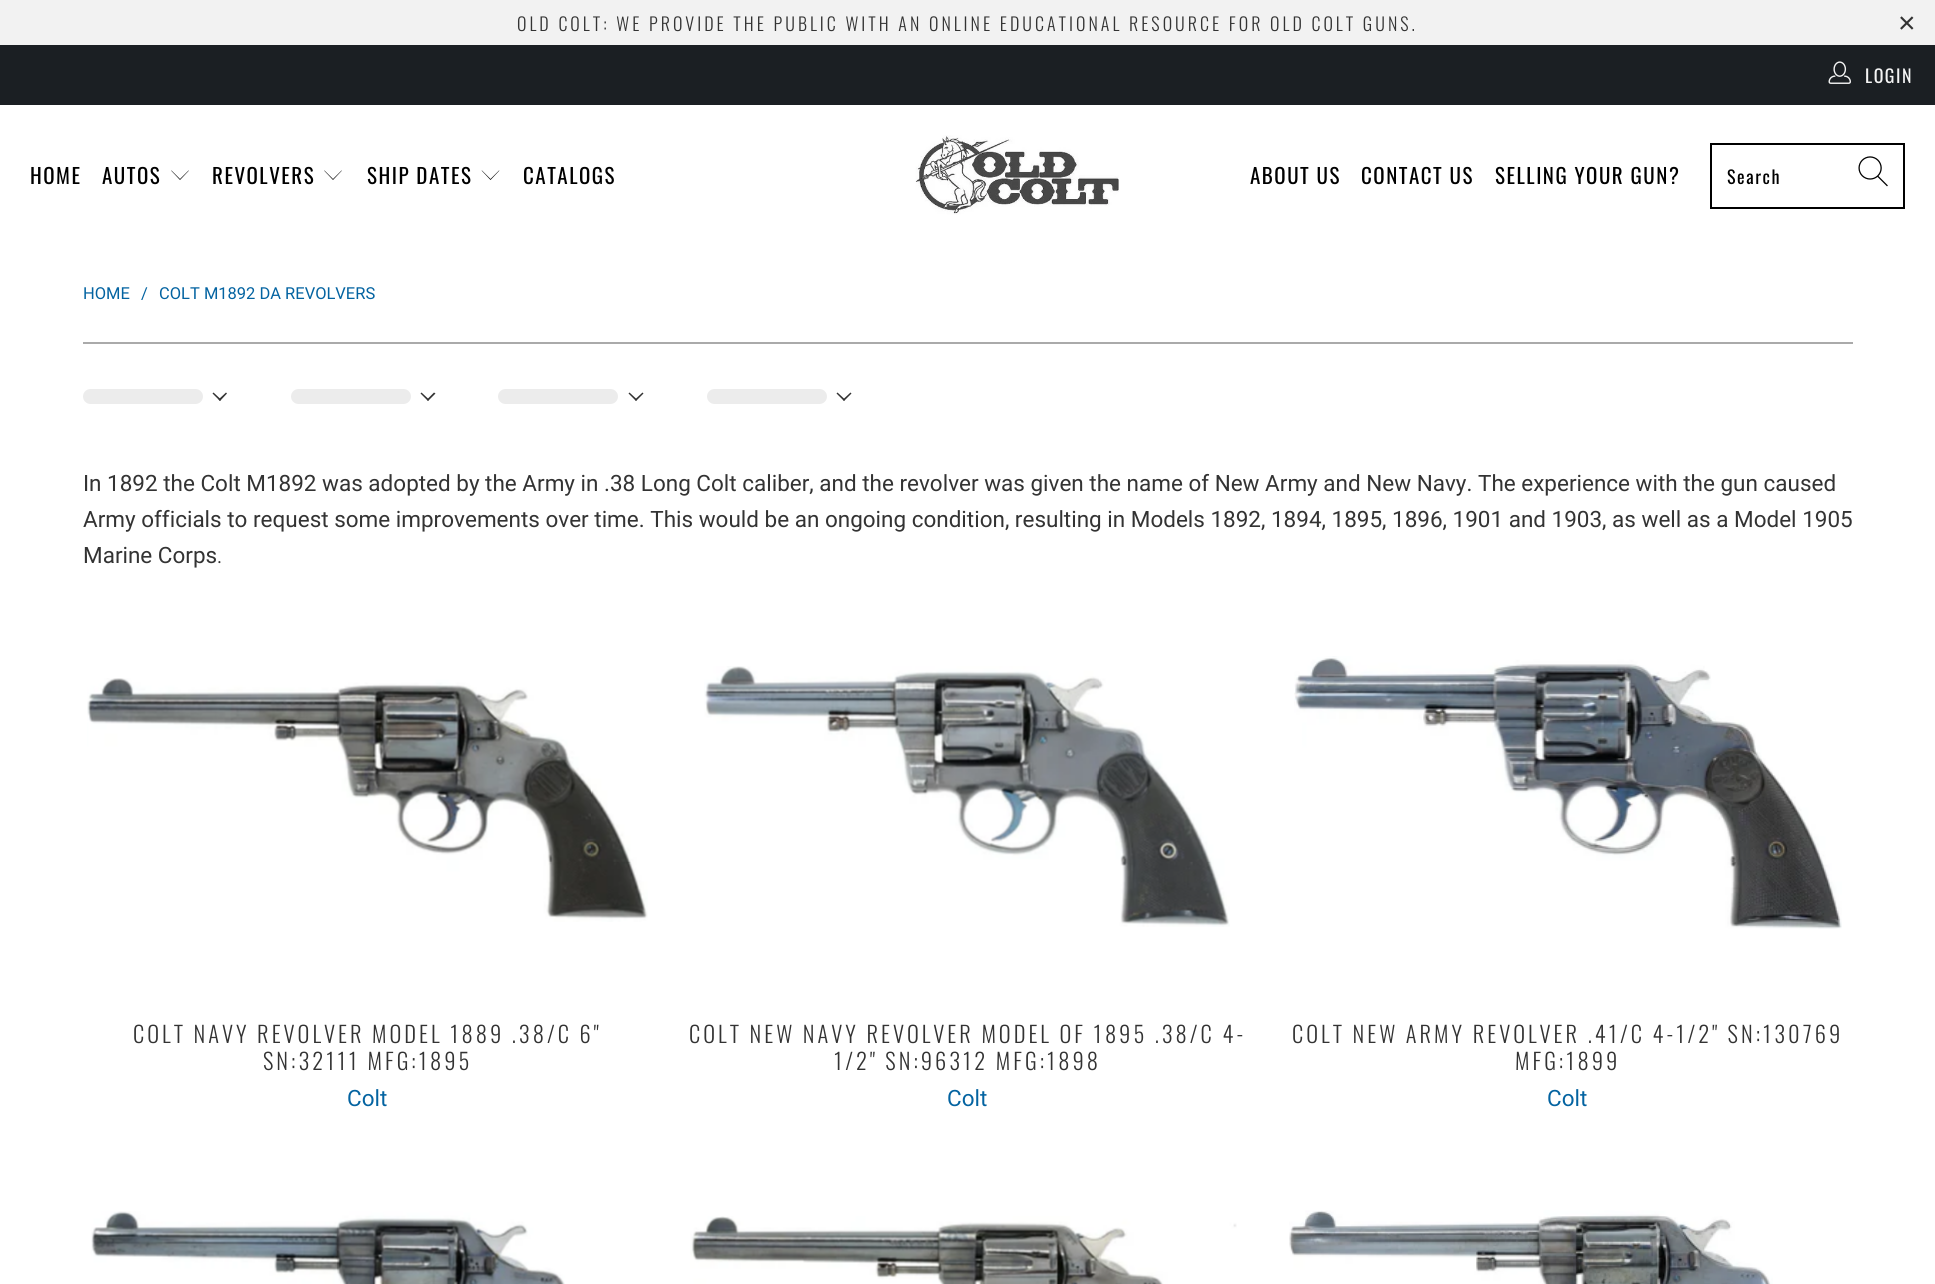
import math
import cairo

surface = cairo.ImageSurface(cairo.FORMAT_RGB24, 1935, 1284)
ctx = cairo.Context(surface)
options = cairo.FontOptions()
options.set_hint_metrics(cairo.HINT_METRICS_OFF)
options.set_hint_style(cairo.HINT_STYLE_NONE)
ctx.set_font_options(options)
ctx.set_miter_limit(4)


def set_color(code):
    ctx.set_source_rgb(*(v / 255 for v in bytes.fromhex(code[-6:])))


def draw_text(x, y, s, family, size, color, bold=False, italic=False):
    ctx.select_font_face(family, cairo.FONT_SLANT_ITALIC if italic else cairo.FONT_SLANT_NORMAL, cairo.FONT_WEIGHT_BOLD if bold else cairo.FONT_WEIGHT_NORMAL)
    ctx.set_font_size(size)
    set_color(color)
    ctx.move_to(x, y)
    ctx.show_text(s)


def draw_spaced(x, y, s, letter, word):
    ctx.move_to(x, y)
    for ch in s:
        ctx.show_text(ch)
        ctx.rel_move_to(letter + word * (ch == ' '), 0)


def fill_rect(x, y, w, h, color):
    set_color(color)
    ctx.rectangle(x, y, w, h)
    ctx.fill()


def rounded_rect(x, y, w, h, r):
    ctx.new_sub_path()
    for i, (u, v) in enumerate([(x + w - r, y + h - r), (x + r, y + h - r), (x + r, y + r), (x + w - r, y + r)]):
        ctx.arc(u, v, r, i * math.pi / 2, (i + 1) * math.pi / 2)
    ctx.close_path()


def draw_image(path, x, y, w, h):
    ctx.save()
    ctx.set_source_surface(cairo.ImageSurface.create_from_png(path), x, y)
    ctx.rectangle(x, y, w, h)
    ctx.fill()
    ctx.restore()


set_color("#ffffff")
ctx.paint()
fill_rect(0, 0, 1935, 45, "#f2f2f2")
ctx.select_font_face("Oswald Light")
ctx.set_font_size(18)
set_color("#333333")
draw_spaced(517, 31, "OLD COLT: WE PROVIDE THE PUBLIC WITH AN ONLINE EDUCATIONAL RESOURCE FOR OLD COLT GUNS.", 3, 0)
ctx.select_font_face("Liberation Sans")
ctx.set_font_size(30)
draw_spaced(1898, 33, "×", 3, 0)
fill_rect(0, 45, 1935, 60, "#1b1f23")
draw_image("assets/img1.png", 1828, 61, 23, 23)
ctx.select_font_face("Oswald")
ctx.set_font_size(18)
set_color("#f4f4f4")
draw_spaced(1865, 83, "LOGIN", 1.5, 0)
ctx.set_font_size(21)
set_color("#000000")
draw_spaced(30, 184, "HOME", 1.5, 0)
draw_spaced(102, 184, "AUTOS", 1.5, 0)
ctx.new_path()
ctx.move_to(180, 180)
ctx.line_to(171, 170.5)
ctx.line_to(171.5, 170.5)
ctx.line_to(180, 179)
ctx.line_to(188.5, 170.5)
ctx.line_to(189, 170.5)
ctx.close_path()
ctx.fill()
draw_spaced(212, 184, "REVOLVERS", 1.5, 0)
ctx.new_path()
ctx.move_to(333, 180)
ctx.line_to(324, 170.5)
ctx.line_to(324.5, 170.5)
ctx.line_to(333, 179)
ctx.line_to(341.5, 170.5)
ctx.line_to(342, 170.5)
ctx.close_path()
ctx.fill()
draw_spaced(367, 184, "SHIP DATES", 1.5, 0)
ctx.new_path()
ctx.move_to(490.5, 180)
ctx.line_to(481.5, 170.5)
ctx.line_to(482, 170.5)
ctx.line_to(490.5, 179)
ctx.line_to(499, 170.5)
ctx.line_to(499.5, 170.5)
ctx.close_path()
ctx.fill()
draw_spaced(523, 184, "CATALOGS", 1.5, 0)
draw_image("assets/img2.png", 915, 135, 204, 80)
draw_spaced(1250, 184, "ABOUT US", 1.5, 0)
draw_spaced(1361, 184, "CONTACT US", 1.5, 0)
draw_spaced(1495, 184, "SELLING YOUR GUN?", 1.5, 0)
ctx.rectangle(1711, 144, 193, 64)
ctx.stroke()
ctx.set_font_size(18)
draw_spaced(1727, 184, "Search", 1.5, 0)
draw_image("assets/img3.png", 1858, 156, 30, 31)
draw_text(83, 299, "HOME", "Roboto", 16.5, "#0363a1")
draw_text(141, 299, "/", "Roboto", 16.5, "#0363a1")
draw_text(159, 299, "COLT M1892 DA REVOLVERS", "Roboto", 16.5, "#0363a1")
fill_rect(83, 342, 1770, 2, "#aaaaaa")
set_color("#ececec")
rounded_rect(83, 389, 120, 15, 7.5)
ctx.fill()
set_color("#333333")
ctx.new_path()
ctx.move_to(226, 392.5)
ctx.line_to(227, 393.5)
ctx.line_to(220, 401)
ctx.line_to(218.5, 399.5)
ctx.close_path()
ctx.fill()
ctx.new_path()
ctx.move_to(213.5, 392.5)
ctx.line_to(221, 399.5)
ctx.line_to(220, 401)
ctx.line_to(212.5, 393.5)
ctx.close_path()
ctx.fill()
set_color("#ececec")
rounded_rect(291, 389, 120, 15, 7.5)
ctx.fill()
set_color("#333333")
ctx.new_path()
ctx.move_to(434, 392.5)
ctx.line_to(435.5, 393.5)
ctx.line_to(428, 401)
ctx.line_to(427, 399.5)
ctx.close_path()
ctx.fill()
ctx.new_path()
ctx.move_to(421.5, 392.5)
ctx.line_to(429, 399.5)
ctx.line_to(428, 401)
ctx.line_to(420.5, 393.5)
ctx.close_path()
ctx.fill()
set_color("#ececec")
rounded_rect(498, 389, 120, 15, 7.5)
ctx.fill()
set_color("#333333")
ctx.new_path()
ctx.move_to(642.5, 392.5)
ctx.line_to(643.5, 393.5)
ctx.line_to(636, 401)
ctx.line_to(635, 399.5)
ctx.close_path()
ctx.fill()
ctx.new_path()
ctx.move_to(629.5, 392.5)
ctx.line_to(637, 399.5)
ctx.line_to(636, 401)
ctx.line_to(628.5, 393.5)
ctx.close_path()
ctx.fill()
set_color("#ececec")
rounded_rect(707, 389, 120, 15, 7.5)
ctx.fill()
set_color("#333333")
ctx.new_path()
ctx.move_to(850.5, 392.5)
ctx.line_to(851.5, 393.5)
ctx.line_to(844, 401)
ctx.line_to(843, 399.5)
ctx.close_path()
ctx.fill()
ctx.new_path()
ctx.move_to(837.5, 392.5)
ctx.line_to(845, 399.5)
ctx.line_to(844, 401)
ctx.line_to(836.5, 393.5)
ctx.close_path()
ctx.fill()
draw_text(83, 491, "In 1892 the Colt M1892 was adopted by the Army in .38 Long Colt caliber, and the revolver was given the name of New Army and New Navy. The experience with the gun caused", "Roboto", 22.5, "#333333")
draw_text(83, 527, "Army officials to request some improvements over time. This would be an ongoing condition, resulting in Models 1892, 1894, 1895, 1896, 1901 and 1903, as well as a Model 1905", "Roboto", 22.5, "#333333")
draw_text(83, 563, "Marine Corps", "Roboto", 22.5, "#333333")
draw_text(217, 563, ".", "Roboto", 19, "#333333")
draw_image("assets/img4.png", 87, 678, 561, 244)
ctx.select_font_face("Oswald Light")
ctx.set_font_size(22.5)
draw_spaced(133, 1043, "COLT NAVY REVOLVER MODEL 1889 .38/C 6\"", 3, 0)
draw_spaced(263, 1070, "SN:32111 MFG:1895", 3, 0)
draw_text(347, 1106, "Colt", "Roboto", 22.5, "#0363a1")
draw_image("assets/img5.png", 704, 666, 526, 261)
ctx.select_font_face("Oswald Light")
set_color("#333333")
draw_spaced(689, 1043, "COLT NEW NAVY REVOLVER MODEL OF 1895 .38/C 4-", 3, 0)
draw_spaced(834, 1070, "1/2\" SN:96312 MFG:1898", 3, 0)
draw_text(947, 1106, "Colt", "Roboto", 22.5, "#0363a1")
draw_image("assets/img6.png", 1294, 656, 548, 273)
ctx.select_font_face("Oswald Light")
set_color("#333333")
draw_spaced(1292, 1043, "COLT NEW ARMY REVOLVER .41/C 4-1/2\" SN:130769", 3, 0)
draw_spaced(1515, 1070, "MFG:1899", 3, 0)
draw_text(1547, 1106, "Colt", "Roboto", 22.5, "#0363a1")
draw_image("assets/img7.png", 91, 1211, 474, 73)
draw_image("assets/img8.png", 690, 1216, 547, 68)
draw_image("assets/img9.png", 1289, 1210, 484, 74)
surface.write_to_png("output.png")
